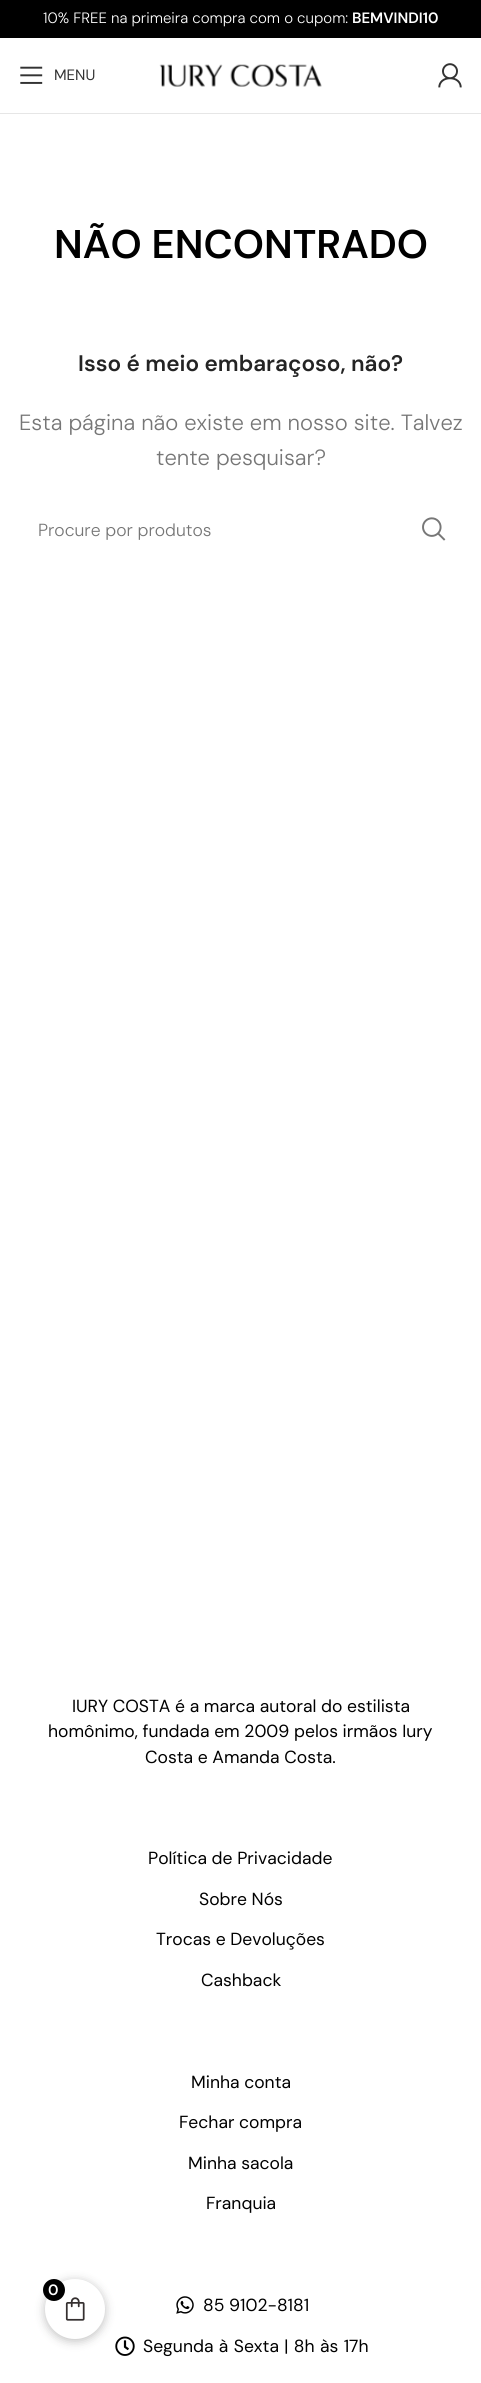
import math
import cairo

surface = cairo.ImageSurface(cairo.FORMAT_RGB24, 481, 2383)
ctx = cairo.Context(surface)
options = cairo.FontOptions()
options.set_hint_metrics(cairo.HINT_METRICS_OFF)
options.set_hint_style(cairo.HINT_STYLE_NONE)
ctx.set_font_options(options)
ctx.set_miter_limit(4)


def set_color(code):
    ctx.set_source_rgb(*(v / 255 for v in bytes.fromhex(code[-6:])))


def draw_text(x, y, s, family, size, color, bold=False, italic=False):
    ctx.select_font_face(family, cairo.FONT_SLANT_ITALIC if italic else cairo.FONT_SLANT_NORMAL, cairo.FONT_WEIGHT_BOLD if bold else cairo.FONT_WEIGHT_NORMAL)
    ctx.set_font_size(size)
    set_color(color)
    ctx.move_to(x, y)
    ctx.show_text(s)


def draw_spaced(x, y, s, letter, word):
    ctx.move_to(x, y)
    for ch in s:
        ctx.show_text(ch)
        ctx.rel_move_to(letter + word * (ch == ' '), 0)


def fill_rect(x, y, w, h, color):
    set_color(color)
    ctx.rectangle(x, y, w, h)
    ctx.fill()


def rounded_rect(x, y, w, h, r):
    ctx.new_sub_path()
    for i, (u, v) in enumerate([(x + w - r, y + h - r), (x + r, y + h - r), (x + r, y + r), (x + w - r, y + r)]):
        ctx.arc(u, v, r, i * math.pi / 2, (i + 1) * math.pi / 2)
    ctx.close_path()


def draw_shadow(x, y, w, h, r, blur, alpha):
    ctx.push_group_with_content(cairo.CONTENT_ALPHA)
    ctx.set_operator(cairo.OPERATOR_SOURCE)
    for i in range(15, -16, -2):
        e = blur * i / 6
        if min(w, h) + 2 * e > 0:
            ctx.set_source_rgba(0, 0, 0, alpha * math.erfc((i - 1) / 8.5) / 2)
            rounded_rect(x - e, y - e, w + 2 * e, h + 2 * e, max(0, min(r + e + blur * .6, min(w, h) / 2 + e)))
            ctx.fill()
    ctx.mask(ctx.pop_group())


def draw_image(path, x, y, w, h):
    ctx.save()
    ctx.set_source_surface(cairo.ImageSurface.create_from_png(path), x, y)
    ctx.rectangle(x, y, w, h)
    ctx.fill()
    ctx.restore()


set_color("#ffffff")
ctx.paint()
fill_rect(0, 0, 481, 38, "#000000")
draw_text(43, 23, "10% FREE na primeira compra com o cupom:", "DM Sans Light", 15, "#ffffff")
draw_text(352, 23, "BEMVINDI10", "DM Sans SemiBold", 15, "#ffffff")
fill_rect(0, 113, 481, 1, "#e6e6e6")
draw_image("assets/img1.png", 20, 66, 23, 18)
draw_text(54, 80, "MENU", "DM Sans", 15, "#333333")
draw_image("assets/img2.png", 159, 64, 163, 23)
draw_image("assets/img3.png", 438, 63, 24, 25)
draw_text(54, 258, "NÃO ENCONTRADO", "DM Sans SemiBold", 40, "#000000")
draw_text(78, 371, "Isso é meio embaraçoso, não?", "DM Sans SemiBold", 22.5, "#242424")
draw_text(19, 430, "Esta página não existe em nosso site. Talvez", "DM Sans Light", 22, "#767676")
draw_text(156, 465, "tente pesquisar?", "DM Sans Light", 22, "#767676")
draw_text(38, 536, "Procure por produtos", "DM Sans Light", 17.5, "#767676")
draw_image("assets/img4.png", 422, 517, 24, 24)
draw_text(72, 1712, "IURY COSTA é a marca autoral do estilista", "DM Sans", 17.5, "#000000")
draw_text(48, 1737, "homônimo, fundada em 2009 pelos irmãos Iury", "DM Sans", 17.5, "#000000")
draw_text(145, 1763, "Costa e Amanda Costa.", "DM Sans", 17.5, "#000000")
draw_text(148, 1864, "Política de Privacidade", "DM Sans", 17.5, "#000000")
draw_text(199, 1905, "Sobre Nós", "DM Sans", 17.5, "#000000")
draw_text(156, 1945, "Trocas e Devoluções", "DM Sans", 17.5, "#000000")
draw_text(201, 1986, "Cashback", "DM Sans", 17.5, "#000000")
draw_text(191, 2088, "Minha conta", "DM Sans", 17.5, "#000000")
draw_text(179, 2128, "Fechar compra", "DM Sans", 17.5, "#000000")
draw_text(188, 2169, "Minha sacola", "DM Sans", 17.5, "#000000")
draw_text(206, 2209, "Franquia", "DM Sans", 17.5, "#000000")
draw_image("assets/img5.png", 176, 2296, 18, 18)
draw_text(203, 2311, "85 9102-8181", "DM Sans", 17.5, "#000000")
draw_image("assets/img6.png", 115, 2336, 20, 20)
draw_spaced(143, 2352, "Segunda à Sexta | 8h às 17h", 0, 0.75)
set_color("#000000")
draw_shadow(45, 2281, 60, 60, 30, 5, 0.25)
set_color("#ffffff")
ctx.arc(75, 2309, 30, 0, 2 * math.pi)
ctx.fill()
draw_image("assets/img7.png", 65, 2297, 20, 24)
set_color("#000000")
ctx.arc(54, 2290, 11, 0, 2 * math.pi)
ctx.fill()
draw_text(48, 2295, "0", "DM Sans SemiBold", 15, "#ffffff")
surface.write_to_png("output.png")
